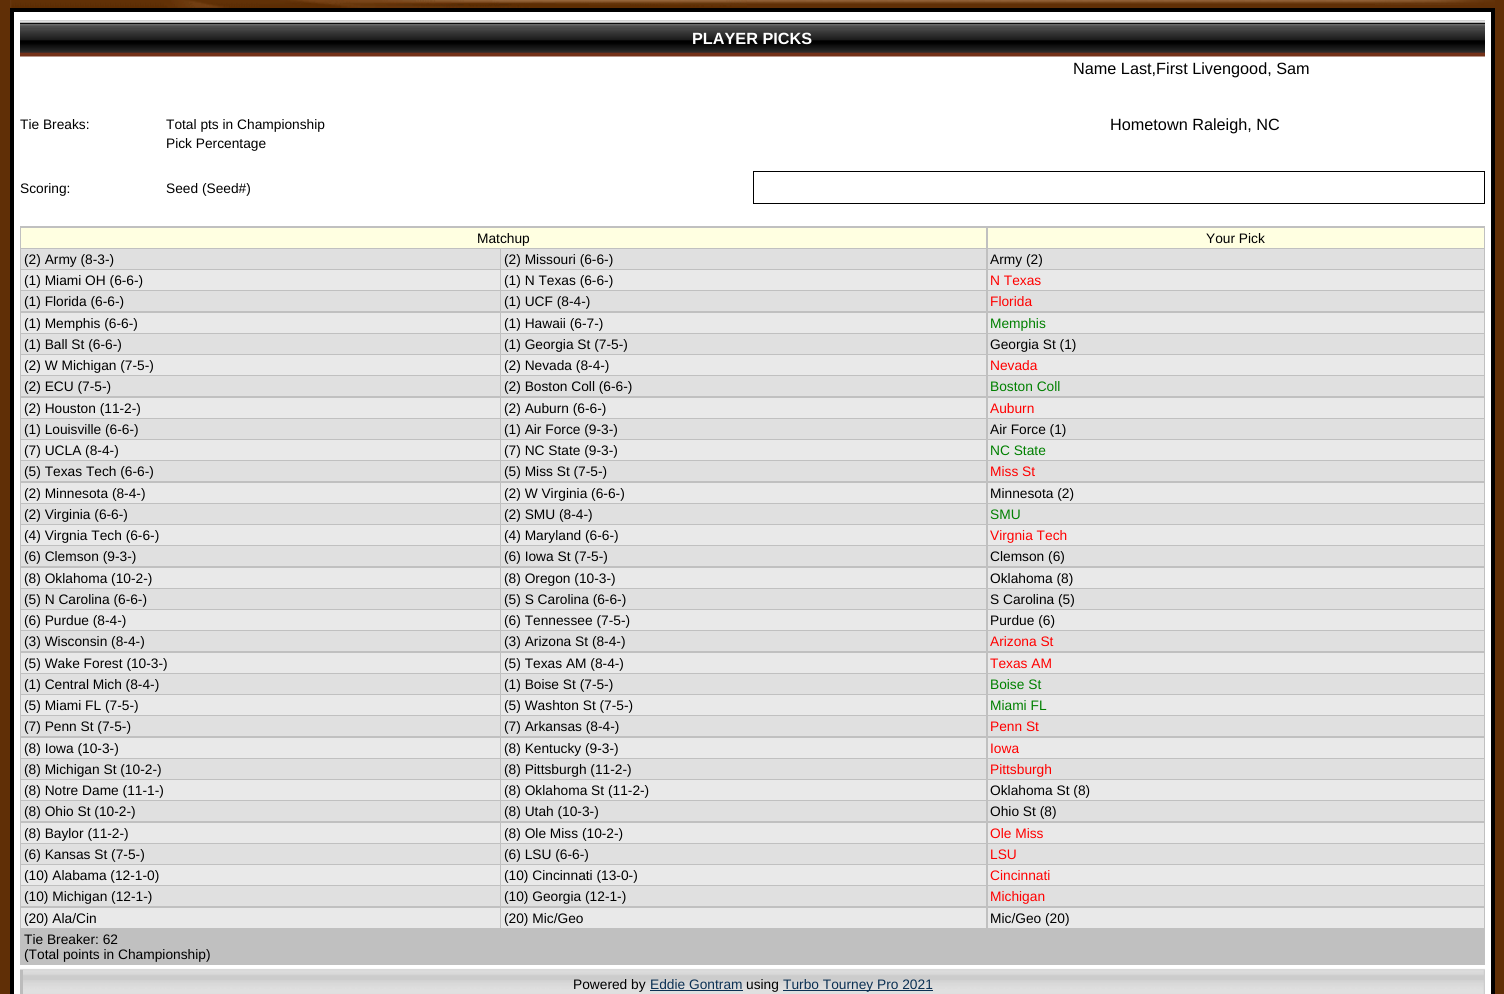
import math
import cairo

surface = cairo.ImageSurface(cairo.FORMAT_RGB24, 1504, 994)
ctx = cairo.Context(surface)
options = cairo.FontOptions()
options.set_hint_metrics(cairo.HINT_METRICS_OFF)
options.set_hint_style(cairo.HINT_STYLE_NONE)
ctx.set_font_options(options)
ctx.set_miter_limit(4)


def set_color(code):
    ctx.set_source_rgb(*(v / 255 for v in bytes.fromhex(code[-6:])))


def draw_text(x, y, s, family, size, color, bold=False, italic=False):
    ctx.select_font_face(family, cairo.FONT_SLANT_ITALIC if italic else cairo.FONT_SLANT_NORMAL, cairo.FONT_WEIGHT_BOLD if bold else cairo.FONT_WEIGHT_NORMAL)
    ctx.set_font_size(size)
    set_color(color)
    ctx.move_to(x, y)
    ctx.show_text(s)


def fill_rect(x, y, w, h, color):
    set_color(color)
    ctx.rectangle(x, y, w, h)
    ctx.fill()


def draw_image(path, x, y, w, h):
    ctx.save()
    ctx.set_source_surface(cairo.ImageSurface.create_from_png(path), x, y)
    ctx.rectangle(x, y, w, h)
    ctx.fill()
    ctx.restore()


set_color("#602f06")
ctx.paint()
draw_image("assets/img1.png", 747, 0, 628, 4)
draw_image("assets/img2.png", 10, 0, 737, 8)
draw_image("assets/img3.png", 1375, 0, 120, 5)
set_color("#ffffff")
ctx.rectangle(12, 10, 1481, 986)
ctx.fill_preserve()
set_color("#000000")
ctx.set_line_width(4)
ctx.stroke()
draw_image("assets/img4.png", 20, 20, 1465, 37)
draw_text(692, 44, "PLAYER PICKS", "Liberation Sans", 16.25, "#ffffff", bold=True)
draw_text(1073, 74, "Name Last,First Livengood, Sam", "Liberation Sans", 16.25, "#000000")
draw_text(20, 129, "Tie Breaks:", "Liberation Sans", 13.75, "#000000")
draw_text(166, 129, "Total pts in Championship", "Liberation Sans", 13.75, "#000000")
draw_text(1110, 130, "Hometown Raleigh, NC", "Liberation Sans", 16.25, "#000000")
draw_text(166, 148, "Pick Percentage", "Liberation Sans", 13.75, "#000000")
draw_text(20, 193, "Scoring:", "Liberation Sans", 13.75, "#000000")
draw_text(166, 193, "Seed (Seed#)", "Liberation Sans", 13.75, "#000000")
ctx.rectangle(753.5, 171.5, 731, 32)
ctx.set_line_width(1)
ctx.stroke()
fill_rect(20, 226, 1465, 739, "#c0c0c0")
fill_rect(21, 228, 965, 20, "#ffffe1")
draw_text(477, 243, "Matchup", "Liberation Sans", 13.75, "#000000")
fill_rect(988, 228, 496, 20, "#ffffe1")
draw_text(1206, 243, "Your Pick", "Liberation Sans", 13.75, "#000000")
fill_rect(21, 249, 479, 20, "#e0e0e0")
draw_text(24, 264, "(2) Army (8-3-)", "Liberation Sans", 13.75, "#000000")
fill_rect(501, 249, 485, 20, "#e0e0e0")
draw_text(504, 264, "(2) Missouri (6-6-)", "Liberation Sans", 13.75, "#000000")
fill_rect(988, 249, 496, 20, "#e0e0e0")
draw_text(990, 264, "Army (2)", "Liberation Sans", 13.75, "#000000")
fill_rect(21, 270, 479, 20, "#e9e9e9")
draw_text(24, 285, "(1) Miami OH (6-6-)", "Liberation Sans", 13.75, "#000000")
fill_rect(501, 270, 485, 20, "#e9e9e9")
draw_text(504, 285, "(1) N Texas (6-6-)", "Liberation Sans", 13.75, "#000000")
fill_rect(988, 270, 496, 20, "#e9e9e9")
draw_text(990, 285, "N Texas", "Liberation Sans", 13.75, "#ff0000")
fill_rect(21, 291, 479, 20, "#e0e0e0")
draw_text(24, 306, "(1) Florida (6-6-)", "Liberation Sans", 13.75, "#000000")
fill_rect(501, 291, 485, 20, "#e0e0e0")
draw_text(504, 306, "(1) UCF (8-4-)", "Liberation Sans", 13.75, "#000000")
fill_rect(988, 291, 496, 20, "#e0e0e0")
draw_text(990, 306, "Florida", "Liberation Sans", 13.75, "#ff0000")
fill_rect(21, 313, 479, 20, "#e9e9e9")
draw_text(24, 328, "(1) Memphis (6-6-)", "Liberation Sans", 13.75, "#000000")
fill_rect(501, 313, 485, 20, "#e9e9e9")
draw_text(504, 328, "(1) Hawaii (6-7-)", "Liberation Sans", 13.75, "#000000")
fill_rect(988, 313, 496, 20, "#e9e9e9")
draw_text(990, 328, "Memphis", "Liberation Sans", 13.75, "#008000")
fill_rect(21, 334, 479, 20, "#e0e0e0")
draw_text(24, 349, "(1) Ball St (6-6-)", "Liberation Sans", 13.75, "#000000")
fill_rect(501, 334, 485, 20, "#e0e0e0")
draw_text(504, 349, "(1) Georgia St (7-5-)", "Liberation Sans", 13.75, "#000000")
fill_rect(988, 334, 496, 20, "#e0e0e0")
draw_text(990, 349, "Georgia St (1)", "Liberation Sans", 13.75, "#000000")
fill_rect(21, 355, 479, 20, "#e9e9e9")
draw_text(24, 370, "(2) W Michigan (7-5-)", "Liberation Sans", 13.75, "#000000")
fill_rect(501, 355, 485, 20, "#e9e9e9")
draw_text(504, 370, "(2) Nevada (8-4-)", "Liberation Sans", 13.75, "#000000")
fill_rect(988, 355, 496, 20, "#e9e9e9")
draw_text(990, 370, "Nevada", "Liberation Sans", 13.75, "#ff0000")
fill_rect(21, 376, 479, 20, "#e0e0e0")
draw_text(24, 391, "(2) ECU (7-5-)", "Liberation Sans", 13.75, "#000000")
fill_rect(501, 376, 485, 20, "#e0e0e0")
draw_text(504, 391, "(2) Boston Coll (6-6-)", "Liberation Sans", 13.75, "#000000")
fill_rect(988, 376, 496, 20, "#e0e0e0")
draw_text(990, 391, "Boston Coll", "Liberation Sans", 13.75, "#008000")
fill_rect(21, 398, 479, 20, "#e9e9e9")
draw_text(24, 413, "(2) Houston (11-2-)", "Liberation Sans", 13.75, "#000000")
fill_rect(501, 398, 485, 20, "#e9e9e9")
draw_text(504, 413, "(2) Auburn (6-6-)", "Liberation Sans", 13.75, "#000000")
fill_rect(988, 398, 496, 20, "#e9e9e9")
draw_text(990, 413, "Auburn", "Liberation Sans", 13.75, "#ff0000")
fill_rect(21, 419, 479, 20, "#e0e0e0")
draw_text(24, 434, "(1) Louisville (6-6-)", "Liberation Sans", 13.75, "#000000")
fill_rect(501, 419, 485, 20, "#e0e0e0")
draw_text(504, 434, "(1) Air Force (9-3-)", "Liberation Sans", 13.75, "#000000")
fill_rect(988, 419, 496, 20, "#e0e0e0")
draw_text(990, 434, "Air Force (1)", "Liberation Sans", 13.75, "#000000")
fill_rect(21, 440, 479, 20, "#e9e9e9")
draw_text(24, 455, "(7) UCLA (8-4-)", "Liberation Sans", 13.75, "#000000")
fill_rect(501, 440, 485, 20, "#e9e9e9")
draw_text(504, 455, "(7) NC State (9-3-)", "Liberation Sans", 13.75, "#000000")
fill_rect(988, 440, 496, 20, "#e9e9e9")
draw_text(990, 455, "NC State", "Liberation Sans", 13.75, "#008000")
fill_rect(21, 461, 479, 20, "#e0e0e0")
draw_text(24, 476, "(5) Texas Tech (6-6-)", "Liberation Sans", 13.75, "#000000")
fill_rect(501, 461, 485, 20, "#e0e0e0")
draw_text(504, 476, "(5) Miss St (7-5-)", "Liberation Sans", 13.75, "#000000")
fill_rect(988, 461, 496, 20, "#e0e0e0")
draw_text(990, 476, "Miss St", "Liberation Sans", 13.75, "#ff0000")
fill_rect(21, 483, 479, 20, "#e9e9e9")
draw_text(24, 498, "(2) Minnesota (8-4-)", "Liberation Sans", 13.75, "#000000")
fill_rect(501, 483, 485, 20, "#e9e9e9")
draw_text(504, 498, "(2) W Virginia (6-6-)", "Liberation Sans", 13.75, "#000000")
fill_rect(988, 483, 496, 20, "#e9e9e9")
draw_text(990, 498, "Minnesota (2)", "Liberation Sans", 13.75, "#000000")
fill_rect(21, 504, 479, 20, "#e0e0e0")
draw_text(24, 519, "(2) Virginia (6-6-)", "Liberation Sans", 13.75, "#000000")
fill_rect(501, 504, 485, 20, "#e0e0e0")
draw_text(504, 519, "(2) SMU (8-4-)", "Liberation Sans", 13.75, "#000000")
fill_rect(988, 504, 496, 20, "#e0e0e0")
draw_text(990, 519, "SMU", "Liberation Sans", 13.75, "#008000")
fill_rect(21, 525, 479, 20, "#e9e9e9")
draw_text(24, 540, "(4) Virgnia Tech (6-6-)", "Liberation Sans", 13.75, "#000000")
fill_rect(501, 525, 485, 20, "#e9e9e9")
draw_text(504, 540, "(4) Maryland (6-6-)", "Liberation Sans", 13.75, "#000000")
fill_rect(988, 525, 496, 20, "#e9e9e9")
draw_text(990, 540, "Virgnia Tech", "Liberation Sans", 13.75, "#ff0000")
fill_rect(21, 546, 479, 20, "#e0e0e0")
draw_text(24, 561, "(6) Clemson (9-3-)", "Liberation Sans", 13.75, "#000000")
fill_rect(501, 546, 485, 20, "#e0e0e0")
draw_text(504, 561, "(6) Iowa St (7-5-)", "Liberation Sans", 13.75, "#000000")
fill_rect(988, 546, 496, 20, "#e0e0e0")
draw_text(990, 561, "Clemson (6)", "Liberation Sans", 13.75, "#000000")
fill_rect(21, 568, 479, 20, "#e9e9e9")
draw_text(24, 583, "(8) Oklahoma (10-2-)", "Liberation Sans", 13.75, "#000000")
fill_rect(501, 568, 485, 20, "#e9e9e9")
draw_text(504, 583, "(8) Oregon (10-3-)", "Liberation Sans", 13.75, "#000000")
fill_rect(988, 568, 496, 20, "#e9e9e9")
draw_text(990, 583, "Oklahoma (8)", "Liberation Sans", 13.75, "#000000")
fill_rect(21, 589, 479, 20, "#e0e0e0")
draw_text(24, 604, "(5) N Carolina (6-6-)", "Liberation Sans", 13.75, "#000000")
fill_rect(501, 589, 485, 20, "#e0e0e0")
draw_text(504, 604, "(5) S Carolina (6-6-)", "Liberation Sans", 13.75, "#000000")
fill_rect(988, 589, 496, 20, "#e0e0e0")
draw_text(990, 604, "S Carolina (5)", "Liberation Sans", 13.75, "#000000")
fill_rect(21, 610, 479, 20, "#e9e9e9")
draw_text(24, 625, "(6) Purdue (8-4-)", "Liberation Sans", 13.75, "#000000")
fill_rect(501, 610, 485, 20, "#e9e9e9")
draw_text(504, 625, "(6) Tennessee (7-5-)", "Liberation Sans", 13.75, "#000000")
fill_rect(988, 610, 496, 20, "#e9e9e9")
draw_text(990, 625, "Purdue (6)", "Liberation Sans", 13.75, "#000000")
fill_rect(21, 631, 479, 20, "#e0e0e0")
draw_text(24, 646, "(3) Wisconsin (8-4-)", "Liberation Sans", 13.75, "#000000")
fill_rect(501, 631, 485, 20, "#e0e0e0")
draw_text(504, 646, "(3) Arizona St (8-4-)", "Liberation Sans", 13.75, "#000000")
fill_rect(988, 631, 496, 20, "#e0e0e0")
draw_text(990, 646, "Arizona St", "Liberation Sans", 13.75, "#ff0000")
fill_rect(21, 653, 479, 20, "#e9e9e9")
draw_text(24, 668, "(5) Wake Forest (10-3-)", "Liberation Sans", 13.75, "#000000")
fill_rect(501, 653, 485, 20, "#e9e9e9")
draw_text(504, 668, "(5) Texas AM (8-4-)", "Liberation Sans", 13.75, "#000000")
fill_rect(988, 653, 496, 20, "#e9e9e9")
draw_text(990, 668, "Texas AM", "Liberation Sans", 13.75, "#ff0000")
fill_rect(21, 674, 479, 20, "#e0e0e0")
draw_text(24, 689, "(1) Central Mich (8-4-)", "Liberation Sans", 13.75, "#000000")
fill_rect(501, 674, 485, 20, "#e0e0e0")
draw_text(504, 689, "(1) Boise St (7-5-)", "Liberation Sans", 13.75, "#000000")
fill_rect(988, 674, 496, 20, "#e0e0e0")
draw_text(990, 689, "Boise St", "Liberation Sans", 13.75, "#008000")
fill_rect(21, 695, 479, 20, "#e9e9e9")
draw_text(24, 710, "(5) Miami FL (7-5-)", "Liberation Sans", 13.75, "#000000")
fill_rect(501, 695, 485, 20, "#e9e9e9")
draw_text(504, 710, "(5) Washton St (7-5-)", "Liberation Sans", 13.75, "#000000")
fill_rect(988, 695, 496, 20, "#e9e9e9")
draw_text(990, 710, "Miami FL", "Liberation Sans", 13.75, "#008000")
fill_rect(21, 716, 479, 20, "#e0e0e0")
draw_text(24, 731, "(7) Penn St (7-5-)", "Liberation Sans", 13.75, "#000000")
fill_rect(501, 716, 485, 20, "#e0e0e0")
draw_text(504, 731, "(7) Arkansas (8-4-)", "Liberation Sans", 13.75, "#000000")
fill_rect(988, 716, 496, 20, "#e0e0e0")
draw_text(990, 731, "Penn St", "Liberation Sans", 13.75, "#ff0000")
fill_rect(21, 738, 479, 20, "#e9e9e9")
draw_text(24, 753, "(8) Iowa (10-3-)", "Liberation Sans", 13.75, "#000000")
fill_rect(501, 738, 485, 20, "#e9e9e9")
draw_text(504, 753, "(8) Kentucky (9-3-)", "Liberation Sans", 13.75, "#000000")
fill_rect(988, 738, 496, 20, "#e9e9e9")
draw_text(990, 753, "Iowa", "Liberation Sans", 13.75, "#ff0000")
fill_rect(21, 759, 479, 20, "#e0e0e0")
draw_text(24, 774, "(8) Michigan St (10-2-)", "Liberation Sans", 13.75, "#000000")
fill_rect(501, 759, 485, 20, "#e0e0e0")
draw_text(504, 774, "(8) Pittsburgh (11-2-)", "Liberation Sans", 13.75, "#000000")
fill_rect(988, 759, 496, 20, "#e0e0e0")
draw_text(990, 774, "Pittsburgh", "Liberation Sans", 13.75, "#ff0000")
fill_rect(21, 780, 479, 20, "#e9e9e9")
draw_text(24, 795, "(8) Notre Dame (11-1-)", "Liberation Sans", 13.75, "#000000")
fill_rect(501, 780, 485, 20, "#e9e9e9")
draw_text(504, 795, "(8) Oklahoma St (11-2-)", "Liberation Sans", 13.75, "#000000")
fill_rect(988, 780, 496, 20, "#e9e9e9")
draw_text(990, 795, "Oklahoma St (8)", "Liberation Sans", 13.75, "#000000")
fill_rect(21, 801, 479, 20, "#e0e0e0")
draw_text(24, 816, "(8) Ohio St (10-2-)", "Liberation Sans", 13.75, "#000000")
fill_rect(501, 801, 485, 20, "#e0e0e0")
draw_text(504, 816, "(8) Utah (10-3-)", "Liberation Sans", 13.75, "#000000")
fill_rect(988, 801, 496, 20, "#e0e0e0")
draw_text(990, 816, "Ohio St (8)", "Liberation Sans", 13.75, "#000000")
fill_rect(21, 823, 479, 20, "#e9e9e9")
draw_text(24, 838, "(8) Baylor (11-2-)", "Liberation Sans", 13.75, "#000000")
fill_rect(501, 823, 485, 20, "#e9e9e9")
draw_text(504, 838, "(8) Ole Miss (10-2-)", "Liberation Sans", 13.75, "#000000")
fill_rect(988, 823, 496, 20, "#e9e9e9")
draw_text(990, 838, "Ole Miss", "Liberation Sans", 13.75, "#ff0000")
fill_rect(21, 844, 479, 20, "#e0e0e0")
draw_text(24, 859, "(6) Kansas St (7-5-)", "Liberation Sans", 13.75, "#000000")
fill_rect(501, 844, 485, 20, "#e0e0e0")
draw_text(504, 859, "(6) LSU (6-6-)", "Liberation Sans", 13.75, "#000000")
fill_rect(988, 844, 496, 20, "#e0e0e0")
draw_text(990, 859, "LSU", "Liberation Sans", 13.75, "#ff0000")
fill_rect(21, 865, 479, 20, "#e9e9e9")
draw_text(24, 880, "(10) Alabama (12-1-0)", "Liberation Sans", 13.75, "#000000")
fill_rect(501, 865, 485, 20, "#e9e9e9")
draw_text(504, 880, "(10) Cincinnati (13-0-)", "Liberation Sans", 13.75, "#000000")
fill_rect(988, 865, 496, 20, "#e9e9e9")
draw_text(990, 880, "Cincinnati", "Liberation Sans", 13.75, "#ff0000")
fill_rect(21, 886, 479, 20, "#e0e0e0")
draw_text(24, 901, "(10) Michigan (12-1-)", "Liberation Sans", 13.75, "#000000")
fill_rect(501, 886, 485, 20, "#e0e0e0")
draw_text(504, 901, "(10) Georgia (12-1-)", "Liberation Sans", 13.75, "#000000")
fill_rect(988, 886, 496, 20, "#e0e0e0")
draw_text(990, 901, "Michigan", "Liberation Sans", 13.75, "#ff0000")
fill_rect(21, 908, 479, 20, "#e9e9e9")
draw_text(24, 923, "(20) Ala/Cin", "Liberation Sans", 13.75, "#000000")
fill_rect(501, 908, 485, 20, "#e9e9e9")
draw_text(504, 923, "(20) Mic/Geo", "Liberation Sans", 13.75, "#000000")
fill_rect(988, 908, 496, 20, "#e9e9e9")
draw_text(990, 923, "Mic/Geo (20)", "Liberation Sans", 13.75, "#000000")
draw_text(24, 944, "Tie Breaker: 62", "Liberation Sans", 13.75, "#000000")
draw_text(24, 959, "(Total points in Championship)", "Liberation Sans", 13.75, "#000000")
draw_image("assets/img5.png", 20, 968, 1465, 26)
fill_rect(20, 970, 3, 24, "#bcbcbc")
draw_text(573, 989, "Powered by", "Liberation Sans", 13.75, "#000000")
draw_text(650, 989, "Eddie Gontram", "Liberation Sans", 13.75, "#0b3053")
fill_rect(650, 990, 93, 1, "#0b3053")
draw_text(746, 989, "using", "Liberation Sans", 13.75, "#000000")
fill_rect(783, 990, 150, 1, "#0b3053")
draw_text(783, 989, "Turbo Tourney Pro 2021", "Liberation Sans", 13.75, "#0b3053")
draw_image("assets/img6.png", 1483, 970, 2, 24)
surface.write_to_png("output.png")
